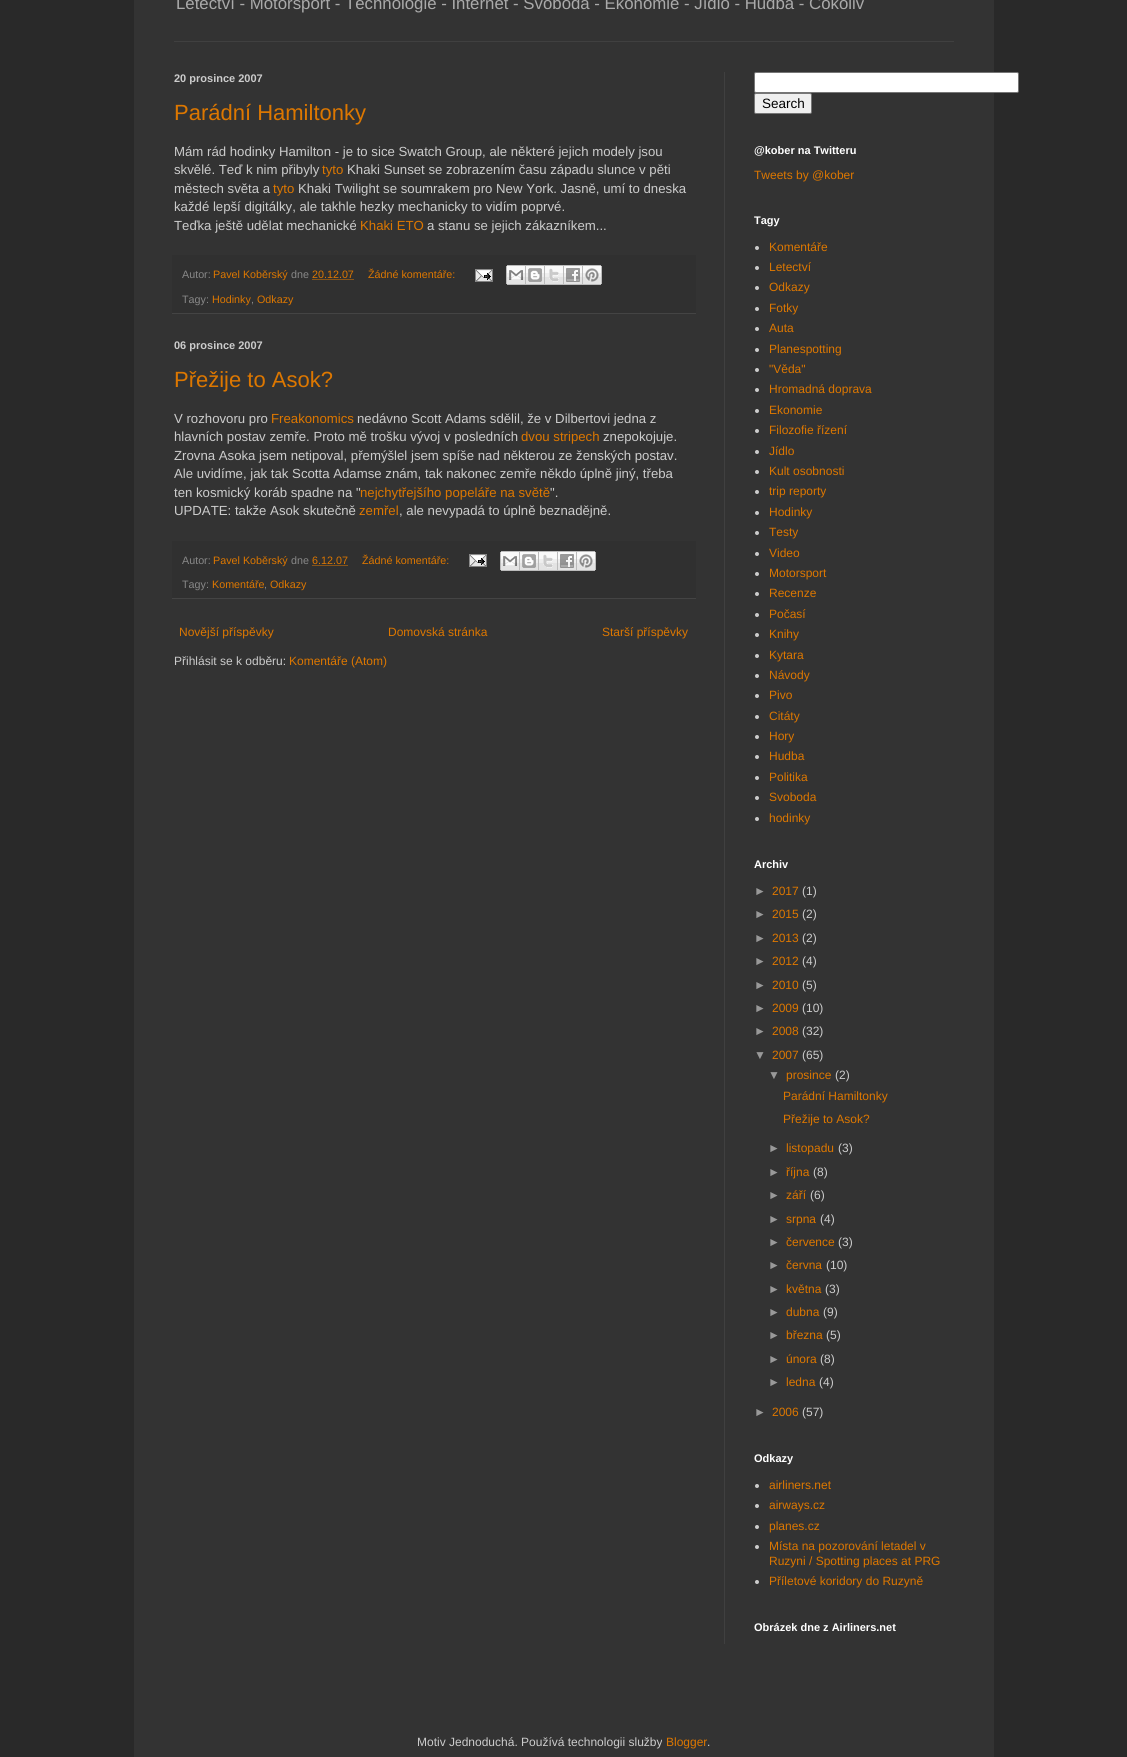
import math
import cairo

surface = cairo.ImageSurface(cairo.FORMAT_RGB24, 1127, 1757)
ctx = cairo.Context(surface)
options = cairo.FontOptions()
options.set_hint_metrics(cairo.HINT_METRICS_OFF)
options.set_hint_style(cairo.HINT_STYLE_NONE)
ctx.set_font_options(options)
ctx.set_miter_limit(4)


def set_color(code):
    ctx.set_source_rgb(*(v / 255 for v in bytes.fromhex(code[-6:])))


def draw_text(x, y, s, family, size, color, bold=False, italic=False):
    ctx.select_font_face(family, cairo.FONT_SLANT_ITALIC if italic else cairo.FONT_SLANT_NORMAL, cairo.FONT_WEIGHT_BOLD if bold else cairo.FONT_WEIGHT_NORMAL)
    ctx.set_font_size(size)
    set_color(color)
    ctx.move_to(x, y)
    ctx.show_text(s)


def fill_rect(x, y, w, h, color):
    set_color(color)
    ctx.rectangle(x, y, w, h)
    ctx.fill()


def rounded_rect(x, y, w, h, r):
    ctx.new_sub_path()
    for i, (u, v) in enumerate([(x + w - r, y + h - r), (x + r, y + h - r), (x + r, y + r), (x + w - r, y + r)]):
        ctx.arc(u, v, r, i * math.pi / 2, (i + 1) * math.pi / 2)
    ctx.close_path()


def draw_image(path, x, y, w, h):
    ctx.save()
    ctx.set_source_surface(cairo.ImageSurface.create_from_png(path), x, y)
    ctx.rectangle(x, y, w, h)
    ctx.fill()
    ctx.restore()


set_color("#292929")
ctx.paint()
fill_rect(134, 0, 860, 1757, "#333333")
draw_text(176, 9, "Letectví - Motorsport - Technologie - Internet - Svoboda - Ekonomie - Jídlo - Hudba - Cokoliv", "Liberation Sans", 16.8, "#aaaaaa")
fill_rect(174, 41, 780, 1, "#404040")
fill_rect(724, 72, 1, 1572, "#404040")
draw_text(174, 82, "20 prosince 2007", "Liberation Sans", 11, "#cccccc", bold=True)
draw_text(174, 120, "Parádní Hamiltonky", "Liberation Sans", 22, "#dd7700")
draw_text(174, 156, "Mám rád hodinky Hamilton - je to sice Swatch Group, ale některé jejich modely jsou", "Liberation Sans", 13.2, "#cccccc")
draw_text(174, 174, "skvělé. Teď k nim přibyly", "Liberation Sans", 13.2, "#cccccc")
draw_text(322, 174, "tyto", "Liberation Sans", 13.2, "#dd7700")
draw_text(347, 174, "Khaki Sunset se zobrazením času západu slunce v pěti", "Liberation Sans", 13.2, "#cccccc")
draw_text(174, 193, "městech světa a", "Liberation Sans", 13.2, "#cccccc")
draw_text(273, 193, "tyto", "Liberation Sans", 13.2, "#dd7700")
draw_text(298, 193, "Khaki Twilight se soumrakem pro New York. Jasně, umí to dneska", "Liberation Sans", 13.2, "#cccccc")
draw_text(174, 211, "každé lepší digitálky, ale takhle hezky mechanicky to vidím poprvé.", "Liberation Sans", 13.2, "#cccccc")
draw_text(174, 230, "Teďka ještě udělat mechanické", "Liberation Sans", 13.2, "#cccccc")
draw_text(360, 230, "Khaki ETO", "Liberation Sans", 13.2, "#dd7700")
draw_text(427, 230, "a stanu se jejich zákazníkem...", "Liberation Sans", 13.2, "#cccccc")
fill_rect(172, 255, 524, 58, "#303030")
fill_rect(172, 313, 524, 1, "#444444")
draw_text(182, 278, "Autor:", "Liberation Sans", 10.75, "#888888")
draw_text(213, 278, "Pavel Koběrský", "Liberation Sans", 10.75, "#dd7700")
draw_text(291, 278, "dne", "Liberation Sans", 10.75, "#888888")
draw_text(312, 278, "20.12.07", "Liberation Sans", 10.75, "#dd7700")
ctx.new_path()
ctx.move_to(312.5, 279.5)
ctx.line_to(354.5, 279.5)
ctx.set_line_width(1)
ctx.set_dash([1, 1])
ctx.stroke()
draw_text(368, 278, "Žádné komentáře:", "Liberation Sans", 10.75, "#dd7700")
draw_image("assets/img1.png", 475, 269, 18, 13)
draw_image("assets/img2.png", 506, 265, 20, 20)
draw_image("assets/img3.png", 526, 265, 19, 20)
draw_image("assets/img4.png", 545, 265, 19, 20)
draw_image("assets/img5.png", 564, 265, 19, 20)
draw_image("assets/img6.png", 583, 265, 19, 20)
draw_text(182, 303, "Tagy:", "Liberation Sans", 10.75, "#888888")
draw_text(212, 303, "Hodinky", "Liberation Sans", 10.75, "#dd7700")
draw_text(251, 303, ",", "Liberation Sans", 10.75, "#888888")
draw_text(257, 303, "Odkazy", "Liberation Sans", 10.75, "#dd7700")
draw_text(174, 349, "06 prosince 2007", "Liberation Sans", 11, "#cccccc", bold=True)
draw_text(174, 387, "Přežije to Asok?", "Liberation Sans", 22, "#dd7700")
draw_text(174, 423, "V rozhovoru pro", "Liberation Sans", 13.2, "#cccccc")
draw_text(271, 423, "Freakonomics", "Liberation Sans", 13.2, "#dd7700")
draw_text(357, 423, "nedávno Scott Adams sdělil, že v Dilbertovi jedna z", "Liberation Sans", 13.2, "#cccccc")
draw_text(174, 441, "hlavních postav zemře. Proto mě trošku vývoj v posledních", "Liberation Sans", 13.2, "#cccccc")
draw_text(521, 441, "dvou stripech", "Liberation Sans", 13.2, "#dd7700")
draw_text(603, 441, "znepokojuje.", "Liberation Sans", 13.2, "#cccccc")
draw_text(174, 460, "Zrovna Asoka jsem netipoval, přemýšlel jsem spíše nad některou ze ženských postav.", "Liberation Sans", 13.2, "#cccccc")
draw_text(174, 478, "Ale uvidíme, jak tak Scotta Adamse znám, tak nakonec zemře někdo úplně jiný, třeba", "Liberation Sans", 13.2, "#cccccc")
draw_text(174, 497, "ten kosmický koráb spadne na \"", "Liberation Sans", 13.2, "#cccccc")
draw_text(360, 497, "nejchytřejšího popeláře na světě", "Liberation Sans", 13.2, "#dd7700")
draw_text(550, 497, "\".", "Liberation Sans", 13.2, "#cccccc")
draw_text(174, 515, "UPDATE: takže Asok skutečně", "Liberation Sans", 13.2, "#cccccc")
draw_text(359, 515, "zemřel", "Liberation Sans", 13.2, "#dd7700")
draw_text(399, 515, ", ale nevypadá to úplně beznadějně.", "Liberation Sans", 13.2, "#cccccc")
fill_rect(172, 541, 524, 57, "#303030")
fill_rect(172, 598, 524, 1, "#444444")
draw_text(182, 564, "Autor:", "Liberation Sans", 10.75, "#888888")
draw_text(213, 564, "Pavel Koběrský", "Liberation Sans", 10.75, "#dd7700")
draw_text(291, 564, "dne", "Liberation Sans", 10.75, "#888888")
draw_text(312, 564, "6.12.07", "Liberation Sans", 10.75, "#dd7700")
ctx.new_path()
ctx.move_to(312.5, 565.5)
ctx.line_to(348.5, 565.5)
ctx.stroke()
draw_text(362, 564, "Žádné komentáře:", "Liberation Sans", 10.75, "#dd7700")
draw_image("assets/img1.png", 469, 554, 18, 13)
draw_image("assets/img2.png", 500, 551, 20, 20)
draw_image("assets/img3.png", 520, 551, 19, 20)
draw_image("assets/img4.png", 539, 551, 19, 20)
draw_image("assets/img5.png", 558, 551, 19, 20)
draw_image("assets/img6.png", 577, 551, 19, 20)
draw_text(182, 588, "Tagy:", "Liberation Sans", 10.75, "#888888")
draw_text(212, 588, "Komentáře", "Liberation Sans", 10.75, "#dd7700")
draw_text(264, 588, ",", "Liberation Sans", 10.75, "#888888")
draw_text(270, 588, "Odkazy", "Liberation Sans", 10.75, "#dd7700")
draw_text(179, 636, "Novější příspěvky", "Liberation Sans", 12, "#dd7700")
draw_text(388, 636, "Domovská stránka", "Liberation Sans", 12, "#dd7700")
draw_text(602, 636, "Starší příspěvky", "Liberation Sans", 12, "#dd7700")
draw_text(174, 665, "Přihlásit se k odběru:", "Liberation Sans", 12, "#cccccc")
draw_text(289, 665, "Komentáře (Atom)", "Liberation Sans", 12, "#dd7700")
set_color("#ffffff")
rounded_rect(754.5, 72.5, 264, 20, 1.5)
ctx.fill_preserve()
set_color("#767676")
ctx.set_dash([])
ctx.stroke()
set_color("#efefef")
rounded_rect(754.5, 93.5, 57, 20, 1.5)
ctx.fill_preserve()
set_color("#767676")
ctx.stroke()
draw_text(762, 108, "Search", "Liberation Sans", 13.5, "#000000")
draw_text(754, 154, "@kober na Twitteru", "Liberation Sans", 11, "#ffffff", bold=True)
draw_text(754, 179, "Tweets by @kober", "Liberation Sans", 12, "#dd7700")
draw_text(754, 224, "Tagy", "Liberation Sans", 11, "#ffffff", bold=True)
set_color("#cccccc")
ctx.new_path()
ctx.arc(757, 248, 2, 0, 2 * math.pi)
ctx.fill()
draw_text(769, 251, "Komentáře", "Liberation Sans", 12, "#dd7700")
set_color("#cccccc")
ctx.new_path()
ctx.arc(757, 268, 2, 0, 2 * math.pi)
ctx.fill()
draw_text(769, 271, "Letectví", "Liberation Sans", 12, "#dd7700")
set_color("#cccccc")
ctx.new_path()
ctx.arc(757, 288, 2, 0, 2 * math.pi)
ctx.fill()
draw_text(769, 291, "Odkazy", "Liberation Sans", 12, "#dd7700")
set_color("#cccccc")
ctx.new_path()
ctx.arc(757, 309, 2, 0, 2 * math.pi)
ctx.fill()
draw_text(769, 312, "Fotky", "Liberation Sans", 12, "#dd7700")
set_color("#cccccc")
ctx.new_path()
ctx.arc(757, 329, 2, 0, 2 * math.pi)
ctx.fill()
draw_text(769, 332, "Auta", "Liberation Sans", 12, "#dd7700")
set_color("#cccccc")
ctx.new_path()
ctx.arc(757, 350, 2, 0, 2 * math.pi)
ctx.fill()
draw_text(769, 353, "Planespotting", "Liberation Sans", 12, "#dd7700")
set_color("#cccccc")
ctx.new_path()
ctx.arc(757, 370, 2, 0, 2 * math.pi)
ctx.fill()
draw_text(769, 373, "\"Věda\"", "Liberation Sans", 12, "#dd7700")
set_color("#cccccc")
ctx.new_path()
ctx.arc(757, 390, 2, 0, 2 * math.pi)
ctx.fill()
draw_text(769, 393, "Hromadná doprava", "Liberation Sans", 12, "#dd7700")
set_color("#cccccc")
ctx.new_path()
ctx.arc(757, 411, 2, 0, 2 * math.pi)
ctx.fill()
draw_text(769, 414, "Ekonomie", "Liberation Sans", 12, "#dd7700")
set_color("#cccccc")
ctx.new_path()
ctx.arc(757, 431, 2, 0, 2 * math.pi)
ctx.fill()
draw_text(769, 434, "Filozofie řízení", "Liberation Sans", 12, "#dd7700")
set_color("#cccccc")
ctx.new_path()
ctx.arc(757, 452, 2, 0, 2 * math.pi)
ctx.fill()
draw_text(769, 455, "Jídlo", "Liberation Sans", 12, "#dd7700")
set_color("#cccccc")
ctx.new_path()
ctx.arc(757, 472, 2, 0, 2 * math.pi)
ctx.fill()
draw_text(769, 475, "Kult osobnosti", "Liberation Sans", 12, "#dd7700")
set_color("#cccccc")
ctx.new_path()
ctx.arc(757, 492, 2, 0, 2 * math.pi)
ctx.fill()
draw_text(769, 495, "trip reporty", "Liberation Sans", 12, "#dd7700")
set_color("#cccccc")
ctx.new_path()
ctx.arc(757, 513, 2, 0, 2 * math.pi)
ctx.fill()
draw_text(769, 516, "Hodinky", "Liberation Sans", 12, "#dd7700")
set_color("#cccccc")
ctx.new_path()
ctx.arc(757, 533, 2, 0, 2 * math.pi)
ctx.fill()
draw_text(769, 536, "Testy", "Liberation Sans", 12, "#dd7700")
set_color("#cccccc")
ctx.new_path()
ctx.arc(757, 554, 2, 0, 2 * math.pi)
ctx.fill()
draw_text(769, 557, "Video", "Liberation Sans", 12, "#dd7700")
set_color("#cccccc")
ctx.new_path()
ctx.arc(757, 574, 2, 0, 2 * math.pi)
ctx.fill()
draw_text(769, 577, "Motorsport", "Liberation Sans", 12, "#dd7700")
set_color("#cccccc")
ctx.new_path()
ctx.arc(757, 594, 2, 0, 2 * math.pi)
ctx.fill()
draw_text(769, 597, "Recenze", "Liberation Sans", 12, "#dd7700")
set_color("#cccccc")
ctx.new_path()
ctx.arc(757, 615, 2, 0, 2 * math.pi)
ctx.fill()
draw_text(769, 618, "Počasí", "Liberation Sans", 12, "#dd7700")
set_color("#cccccc")
ctx.new_path()
ctx.arc(757, 635, 2, 0, 2 * math.pi)
ctx.fill()
draw_text(769, 638, "Knihy", "Liberation Sans", 12, "#dd7700")
set_color("#cccccc")
ctx.new_path()
ctx.arc(757, 656, 2, 0, 2 * math.pi)
ctx.fill()
draw_text(769, 659, "Kytara", "Liberation Sans", 12, "#dd7700")
set_color("#cccccc")
ctx.new_path()
ctx.arc(757, 676, 2, 0, 2 * math.pi)
ctx.fill()
draw_text(769, 679, "Návody", "Liberation Sans", 12, "#dd7700")
set_color("#cccccc")
ctx.new_path()
ctx.arc(757, 696, 2, 0, 2 * math.pi)
ctx.fill()
draw_text(769, 699, "Pivo", "Liberation Sans", 12, "#dd7700")
set_color("#cccccc")
ctx.new_path()
ctx.arc(757, 717, 2, 0, 2 * math.pi)
ctx.fill()
draw_text(769, 720, "Citáty", "Liberation Sans", 12, "#dd7700")
set_color("#cccccc")
ctx.new_path()
ctx.arc(757, 737, 2, 0, 2 * math.pi)
ctx.fill()
draw_text(769, 740, "Hory", "Liberation Sans", 12, "#dd7700")
set_color("#cccccc")
ctx.new_path()
ctx.arc(757, 757, 2, 0, 2 * math.pi)
ctx.fill()
draw_text(769, 760, "Hudba", "Liberation Sans", 12, "#dd7700")
set_color("#cccccc")
ctx.new_path()
ctx.arc(757, 778, 2, 0, 2 * math.pi)
ctx.fill()
draw_text(769, 781, "Politika", "Liberation Sans", 12, "#dd7700")
set_color("#cccccc")
ctx.new_path()
ctx.arc(757, 798, 2, 0, 2 * math.pi)
ctx.fill()
draw_text(769, 801, "Svoboda", "Liberation Sans", 12, "#dd7700")
set_color("#cccccc")
ctx.new_path()
ctx.arc(757, 819, 2, 0, 2 * math.pi)
ctx.fill()
draw_text(769, 822, "hodinky", "Liberation Sans", 12, "#dd7700")
draw_text(754, 868, "Archiv", "Liberation Sans", 11, "#ffffff", bold=True)
draw_text(754, 895, "►", "Liberation Sans", 12, "#999999")
draw_text(772, 895, "2017", "Liberation Sans", 12, "#dd7700")
draw_text(802, 895, "(1)", "Liberation Sans", 12, "#cccccc")
draw_text(754, 918, "►", "Liberation Sans", 12, "#999999")
draw_text(772, 918, "2015", "Liberation Sans", 12, "#dd7700")
draw_text(802, 918, "(2)", "Liberation Sans", 12, "#cccccc")
draw_text(754, 942, "►", "Liberation Sans", 12, "#999999")
draw_text(772, 942, "2013", "Liberation Sans", 12, "#dd7700")
draw_text(802, 942, "(2)", "Liberation Sans", 12, "#cccccc")
draw_text(754, 965, "►", "Liberation Sans", 12, "#999999")
draw_text(772, 965, "2012", "Liberation Sans", 12, "#dd7700")
draw_text(802, 965, "(4)", "Liberation Sans", 12, "#cccccc")
draw_text(754, 989, "►", "Liberation Sans", 12, "#999999")
draw_text(772, 989, "2010", "Liberation Sans", 12, "#dd7700")
draw_text(802, 989, "(5)", "Liberation Sans", 12, "#cccccc")
draw_text(754, 1012, "►", "Liberation Sans", 12, "#999999")
draw_text(772, 1012, "2009", "Liberation Sans", 12, "#dd7700")
draw_text(802, 1012, "(10)", "Liberation Sans", 12, "#cccccc")
draw_text(754, 1035, "►", "Liberation Sans", 12, "#999999")
draw_text(772, 1035, "2008", "Liberation Sans", 12, "#dd7700")
draw_text(802, 1035, "(32)", "Liberation Sans", 12, "#cccccc")
draw_text(754, 1059, "▼", "Liberation Sans", 12, "#999999")
draw_text(772, 1059, "2007", "Liberation Sans", 12, "#dd7700")
draw_text(802, 1059, "(65)", "Liberation Sans", 12, "#cccccc")
draw_text(768, 1079, "▼", "Liberation Sans", 12, "#999999")
draw_text(786, 1079, "prosince", "Liberation Sans", 12, "#dd7700")
draw_text(835, 1079, "(2)", "Liberation Sans", 12, "#cccccc")
draw_text(783, 1100, "Parádní Hamiltonky", "Liberation Sans", 12, "#dd7700")
draw_text(783, 1123, "Přežije to Asok?", "Liberation Sans", 12, "#dd7700")
draw_text(768, 1152, "►", "Liberation Sans", 12, "#999999")
draw_text(786, 1152, "listopadu", "Liberation Sans", 12, "#dd7700")
draw_text(838, 1152, "(3)", "Liberation Sans", 12, "#cccccc")
draw_text(768, 1176, "►", "Liberation Sans", 12, "#999999")
draw_text(786, 1176, "října", "Liberation Sans", 12, "#dd7700")
draw_text(813, 1176, "(8)", "Liberation Sans", 12, "#cccccc")
draw_text(768, 1199, "►", "Liberation Sans", 12, "#999999")
draw_text(786, 1199, "září", "Liberation Sans", 12, "#dd7700")
draw_text(810, 1199, "(6)", "Liberation Sans", 12, "#cccccc")
draw_text(768, 1223, "►", "Liberation Sans", 12, "#999999")
draw_text(786, 1223, "srpna", "Liberation Sans", 12, "#dd7700")
draw_text(820, 1223, "(4)", "Liberation Sans", 12, "#cccccc")
draw_text(768, 1246, "►", "Liberation Sans", 12, "#999999")
draw_text(786, 1246, "července", "Liberation Sans", 12, "#dd7700")
draw_text(838, 1246, "(3)", "Liberation Sans", 12, "#cccccc")
draw_text(768, 1269, "►", "Liberation Sans", 12, "#999999")
draw_text(786, 1269, "června", "Liberation Sans", 12, "#dd7700")
draw_text(826, 1269, "(10)", "Liberation Sans", 12, "#cccccc")
draw_text(768, 1293, "►", "Liberation Sans", 12, "#999999")
draw_text(786, 1293, "května", "Liberation Sans", 12, "#dd7700")
draw_text(825, 1293, "(3)", "Liberation Sans", 12, "#cccccc")
draw_text(768, 1316, "►", "Liberation Sans", 12, "#999999")
draw_text(786, 1316, "dubna", "Liberation Sans", 12, "#dd7700")
draw_text(823, 1316, "(9)", "Liberation Sans", 12, "#cccccc")
draw_text(768, 1339, "►", "Liberation Sans", 12, "#999999")
draw_text(786, 1339, "března", "Liberation Sans", 12, "#dd7700")
draw_text(826, 1339, "(5)", "Liberation Sans", 12, "#cccccc")
draw_text(768, 1363, "►", "Liberation Sans", 12, "#999999")
draw_text(786, 1363, "února", "Liberation Sans", 12, "#dd7700")
draw_text(820, 1363, "(8)", "Liberation Sans", 12, "#cccccc")
draw_text(768, 1386, "►", "Liberation Sans", 12, "#999999")
draw_text(786, 1386, "ledna", "Liberation Sans", 12, "#dd7700")
draw_text(819, 1386, "(4)", "Liberation Sans", 12, "#cccccc")
draw_text(754, 1416, "►", "Liberation Sans", 12, "#999999")
draw_text(772, 1416, "2006", "Liberation Sans", 12, "#dd7700")
draw_text(802, 1416, "(57)", "Liberation Sans", 12, "#cccccc")
draw_text(754, 1462, "Odkazy", "Liberation Sans", 11, "#ffffff", bold=True)
set_color("#cccccc")
ctx.new_path()
ctx.arc(757, 1486, 2, 0, 2 * math.pi)
ctx.fill()
draw_text(769, 1489, "airliners.net", "Liberation Sans", 12, "#dd7700")
set_color("#cccccc")
ctx.new_path()
ctx.arc(757, 1506, 2, 0, 2 * math.pi)
ctx.fill()
draw_text(769, 1509, "airways.cz", "Liberation Sans", 12, "#dd7700")
set_color("#cccccc")
ctx.new_path()
ctx.arc(757, 1527, 2, 0, 2 * math.pi)
ctx.fill()
draw_text(769, 1530, "planes.cz", "Liberation Sans", 12, "#dd7700")
set_color("#cccccc")
ctx.new_path()
ctx.arc(757, 1547, 2, 0, 2 * math.pi)
ctx.fill()
draw_text(769, 1550, "Místa na pozorování letadel v", "Liberation Sans", 12, "#dd7700")
draw_text(769, 1565, "Ruzyni / Spotting places at PRG", "Liberation Sans", 12, "#dd7700")
set_color("#cccccc")
ctx.new_path()
ctx.arc(757, 1582, 2, 0, 2 * math.pi)
ctx.fill()
draw_text(769, 1585, "Příletové koridory do Ruzyně", "Liberation Sans", 12, "#dd7700")
draw_text(754, 1631, "Obrázek dne z Airliners.net", "Liberation Sans", 11, "#ffffff", bold=True)
draw_text(417, 1746, "Motiv Jednoduchá. Používá technologii služby", "Liberation Sans", 12, "#cccccc")
draw_text(666, 1746, "Blogger", "Liberation Sans", 12, "#dd7700")
draw_text(707, 1746, ".", "Liberation Sans", 12, "#cccccc")
surface.write_to_png("output.png")
